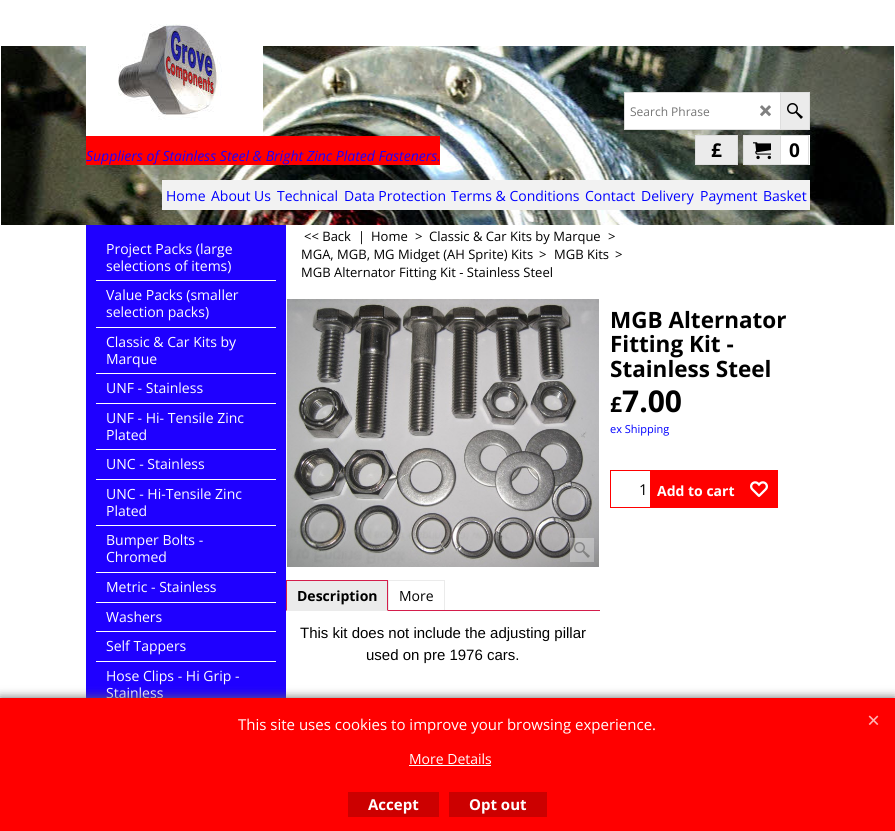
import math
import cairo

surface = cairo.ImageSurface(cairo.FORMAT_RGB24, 895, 831)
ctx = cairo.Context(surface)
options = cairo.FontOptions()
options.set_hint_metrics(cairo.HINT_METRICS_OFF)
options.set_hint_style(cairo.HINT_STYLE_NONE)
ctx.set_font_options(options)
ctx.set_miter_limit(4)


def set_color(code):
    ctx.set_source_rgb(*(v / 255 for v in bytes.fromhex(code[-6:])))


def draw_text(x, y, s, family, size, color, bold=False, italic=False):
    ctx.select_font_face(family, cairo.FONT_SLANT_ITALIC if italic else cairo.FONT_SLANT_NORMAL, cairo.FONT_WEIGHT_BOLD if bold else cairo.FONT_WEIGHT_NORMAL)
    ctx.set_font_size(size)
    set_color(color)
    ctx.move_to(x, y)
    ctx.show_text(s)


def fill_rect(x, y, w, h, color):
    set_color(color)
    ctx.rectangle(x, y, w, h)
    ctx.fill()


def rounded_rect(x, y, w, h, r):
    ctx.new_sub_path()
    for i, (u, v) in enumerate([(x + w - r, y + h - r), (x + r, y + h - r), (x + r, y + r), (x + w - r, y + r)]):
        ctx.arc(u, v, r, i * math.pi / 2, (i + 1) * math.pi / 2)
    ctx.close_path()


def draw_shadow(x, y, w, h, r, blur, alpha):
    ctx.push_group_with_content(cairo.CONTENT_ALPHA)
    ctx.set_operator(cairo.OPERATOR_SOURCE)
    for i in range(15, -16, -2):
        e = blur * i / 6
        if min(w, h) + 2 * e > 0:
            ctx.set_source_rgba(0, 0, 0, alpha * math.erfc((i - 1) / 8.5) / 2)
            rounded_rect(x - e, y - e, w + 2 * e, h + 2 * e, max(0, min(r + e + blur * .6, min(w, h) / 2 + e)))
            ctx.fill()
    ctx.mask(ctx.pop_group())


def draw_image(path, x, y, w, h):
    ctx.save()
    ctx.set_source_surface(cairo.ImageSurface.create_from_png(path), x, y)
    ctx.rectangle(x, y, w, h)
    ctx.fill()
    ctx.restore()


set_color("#ffffff")
ctx.paint()
draw_image("assets/img1.png", 1, 46, 893, 179)
draw_image("assets/img2.png", 86, 24, 177, 112)
fill_rect(86, 136, 354, 29, "#ff0000")
draw_text(86, 161, "Suppliers of Stainless Steel & Bright Zinc Plated Fasteners.", "Open Sans", 14, "#1f00ff", italic=True)
ctx.rectangle(624.5, 92.5, 185, 37)
set_color("#dedede")
ctx.set_line_width(1)
ctx.stroke()
fill_rect(625, 93, 155, 36, "#ffffff")
draw_text(630, 116, "Search Phrase", "Open Sans", 12, "#757575")
draw_image("assets/img3.png", 760, 105, 11, 12)
fill_rect(781, 93, 28, 36, "#ebebeb")
fill_rect(780, 93, 1, 36, "#dedede")
draw_image("assets/img4.png", 787, 103, 16, 16)
set_color("#ebebeb")
ctx.rectangle(695.5, 135.5, 42, 29)
ctx.fill_preserve()
set_color("#dedede")
ctx.stroke()
draw_text(711, 157, "£", "Open Sans", 19, "#000000", bold=True)
fill_rect(781, 135, 29, 30, "#ffffff")
set_color("#ebebeb")
ctx.rectangle(743.5, 135.5, 37, 29)
ctx.fill_preserve()
set_color("#dedede")
ctx.stroke()
draw_image("assets/img5.png", 753, 142, 18, 18)
ctx.rectangle(780.5, 135.5, 28, 29)
ctx.stroke()
draw_text(789, 157, "0", "Open Sans", 19, "#000000", bold=True)
fill_rect(162, 180, 648, 30, "#f2f2f2")
draw_text(166, 201, "Home", "Open Sans", 14, "#0000ff")
draw_text(211, 201, "About Us", "Open Sans", 14, "#0000ff")
draw_text(277, 201, "Technical", "Open Sans", 14, "#0000ff")
draw_text(344, 201, "Data Protection", "Open Sans", 14, "#0000ff")
draw_text(451, 201, "Terms & Conditions", "Open Sans", 14, "#0000ff")
draw_text(585, 201, "Contact", "Open Sans", 14, "#0000ff")
draw_text(641, 201, "Delivery", "Open Sans", 14, "#0000ff")
draw_text(700, 201, "Payment", "Open Sans", 14, "#0000ff")
draw_text(763, 201, "Basket", "Open Sans", 14, "#0000ff")
fill_rect(86, 225, 200, 473, "#1f00ff")
fill_rect(96, 280, 180, 1, "#ffffff")
draw_text(106, 254, "Project Packs (large", "Open Sans", 14, "#ffffff")
draw_text(106, 271, "selections of items)", "Open Sans", 14, "#ffffff")
fill_rect(96, 327, 180, 1, "#ffffff")
draw_text(106, 300, "Value Packs (smaller", "Open Sans", 14, "#ffffff")
draw_text(106, 317, "selection packs)", "Open Sans", 14, "#ffffff")
fill_rect(96, 373, 180, 1, "#ffffff")
draw_text(106, 347, "Classic & Car Kits by", "Open Sans", 14, "#ffffff")
draw_text(106, 364, "Marque", "Open Sans", 14, "#ffffff")
fill_rect(96, 403, 180, 1, "#ffffff")
draw_text(106, 393, "UNF - Stainless", "Open Sans", 14, "#ffffff")
fill_rect(96, 449, 180, 1, "#ffffff")
draw_text(106, 423, "UNF - Hi- Tensile Zinc", "Open Sans", 14, "#ffffff")
draw_text(106, 440, "Plated", "Open Sans", 14, "#ffffff")
fill_rect(96, 479, 180, 1, "#ffffff")
draw_text(106, 469, "UNC - Stainless", "Open Sans", 14, "#ffffff")
fill_rect(96, 525, 180, 1, "#ffffff")
draw_text(106, 499, "UNC - Hi-Tensile Zinc", "Open Sans", 14, "#ffffff")
draw_text(106, 516, "Plated", "Open Sans", 14, "#ffffff")
fill_rect(96, 572, 180, 1, "#ffffff")
draw_text(106, 545, "Bumper Bolts -", "Open Sans", 14, "#ffffff")
draw_text(106, 562, "Chromed", "Open Sans", 14, "#ffffff")
fill_rect(96, 602, 180, 1, "#ffffff")
draw_text(106, 592, "Metric - Stainless", "Open Sans", 14, "#ffffff")
fill_rect(96, 631, 180, 1, "#ffffff")
draw_text(106, 622, "Washers", "Open Sans", 14, "#ffffff")
fill_rect(96, 661, 180, 1, "#ffffff")
draw_text(106, 651, "Self Tappers", "Open Sans", 14, "#ffffff")
draw_text(106, 681, "Hose Clips - Hi Grip -", "Open Sans", 14, "#ffffff")
draw_text(106, 698, "Stainless", "Open Sans", 14, "#ffffff")
draw_text(304, 241, "<< Back", "Open Sans", 13, "#000000")
draw_text(358, 241, "|", "Open Sans", 13, "#000000")
draw_text(371, 241, "Home", "Open Sans", 13, "#000000")
draw_text(415, 241, ">", "Open Sans", 13, "#000000")
draw_text(429, 241, "Classic & Car Kits by Marque", "Open Sans", 13, "#000000")
draw_text(608, 241, ">", "Open Sans", 13, "#000000")
draw_text(301, 259, "MGA, MGB, MG Midget (AH Sprite) Kits", "Open Sans", 13, "#000000")
draw_text(539, 259, ">", "Open Sans", 13, "#000000")
draw_text(554, 259, "MGB Kits", "Open Sans", 13, "#000000")
draw_text(615, 259, ">", "Open Sans", 13, "#000000")
draw_text(301, 277, "MGB Alternator Fitting Kit - Stainless Steel", "Open Sans", 13, "#000000")
draw_image("assets/img6.png", 287, 299, 312, 268)
ctx.set_source_rgba(1, 1, 1, 0.3)
ctx.rectangle(570, 538, 24, 24)
ctx.fill()
draw_image("assets/img7.png", 574, 542, 16, 16)
draw_text(610, 328, "MGB Alternator", "Open Sans", 22.5, "#000000", bold=True)
draw_text(610, 352, "Fitting Kit -", "Open Sans", 22.5, "#000000", bold=True)
draw_text(610, 377, "Stainless Steel", "Open Sans", 22.5, "#000000", bold=True)
draw_text(610, 412, "£", "Open Sans", 21, "#000000", bold=True)
draw_text(622, 412, "7.00", "Open Sans", 30, "#000000", bold=True)
draw_text(610, 433, "ex Shipping", "Open Sans", 11, "#0000ff")
fill_rect(610, 470, 168, 38, "#ff0000")
fill_rect(611, 471, 39, 36, "#ffffff")
draw_text(639, 495, "1", "Open Sans", 15, "#000000")
draw_text(657, 496, "Add to cart", "Open Sans", 14, "#ffffff", bold=True)
draw_image("assets/img8.png", 750, 481, 18, 16)
fill_rect(286, 581, 102, 30, "#ebebeb")
fill_rect(286, 580, 102, 1, "#d41d4b")
ctx.new_path()
ctx.move_to(388, 580)
ctx.line_to(388, 611)
ctx.line_to(387, 610)
ctx.line_to(387, 581)
ctx.close_path()
ctx.fill()
ctx.new_path()
ctx.move_to(286, 611)
ctx.line_to(286, 580)
ctx.line_to(287, 581)
ctx.line_to(287, 610)
ctx.close_path()
ctx.fill()
draw_text(297, 601, "Description", "Open Sans", 14, "#000000", bold=True)
fill_rect(388, 580, 57, 1, "#ebebeb")
fill_rect(444, 580, 1, 30, "#ebebeb")
fill_rect(388, 580, 1, 30, "#ebebeb")
draw_text(399, 601, "More", "Open Sans", 14, "#000000")
fill_rect(388, 610, 212, 1, "#d41d4b")
draw_text(300, 638, "This kit does not include the adjusting pillar", "Liberation Sans", 15, "#000000")
draw_text(366, 660, "used on pre 1976 cars.", "Liberation Sans", 15, "#000000")
set_color("#666666")
draw_shadow(0, 698, 895, 133, 0, 5, 1)
fill_rect(0, 698, 895, 133, "#ff0000")
draw_text(238, 730, "This site uses cookies to improve your browsing experience.", "Open Sans", 15, "#ffffff")
draw_text(409, 764, "More Details", "Open Sans", 14, "#ffffff")
fill_rect(409, 765, 82, 1, "#ffffff")
draw_image("assets/img9.png", 868, 715, 11, 10)
fill_rect(348, 792, 91, 25, "#cc0000")
draw_text(368, 810, "Accept", "Open Sans", 15, "#ffffff", bold=True)
fill_rect(449, 792, 98, 25, "#cc0000")
draw_text(469, 810, "Opt out", "Open Sans", 15, "#ffffff", bold=True)
surface.write_to_png("output.png")
